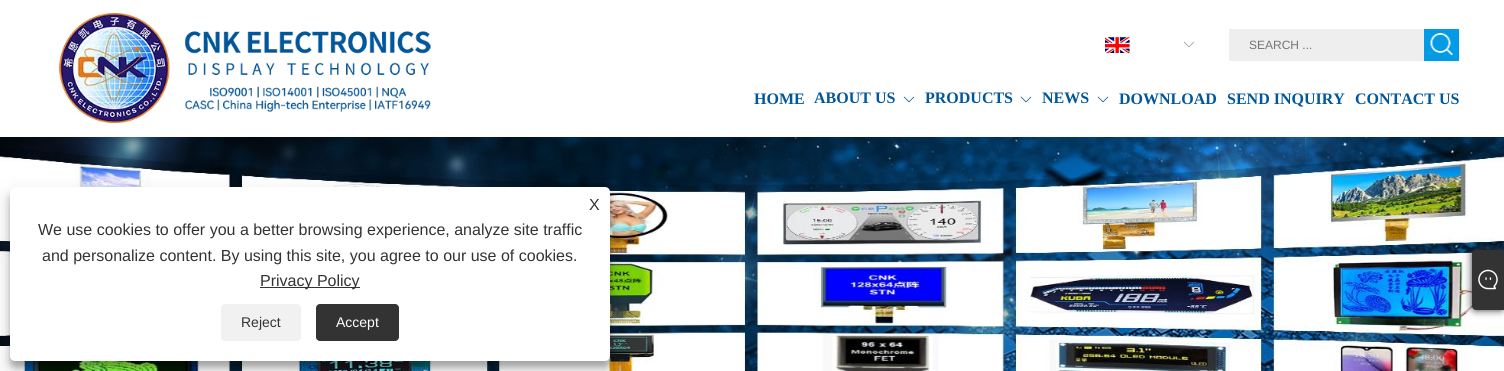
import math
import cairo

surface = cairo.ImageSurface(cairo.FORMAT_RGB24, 1504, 371)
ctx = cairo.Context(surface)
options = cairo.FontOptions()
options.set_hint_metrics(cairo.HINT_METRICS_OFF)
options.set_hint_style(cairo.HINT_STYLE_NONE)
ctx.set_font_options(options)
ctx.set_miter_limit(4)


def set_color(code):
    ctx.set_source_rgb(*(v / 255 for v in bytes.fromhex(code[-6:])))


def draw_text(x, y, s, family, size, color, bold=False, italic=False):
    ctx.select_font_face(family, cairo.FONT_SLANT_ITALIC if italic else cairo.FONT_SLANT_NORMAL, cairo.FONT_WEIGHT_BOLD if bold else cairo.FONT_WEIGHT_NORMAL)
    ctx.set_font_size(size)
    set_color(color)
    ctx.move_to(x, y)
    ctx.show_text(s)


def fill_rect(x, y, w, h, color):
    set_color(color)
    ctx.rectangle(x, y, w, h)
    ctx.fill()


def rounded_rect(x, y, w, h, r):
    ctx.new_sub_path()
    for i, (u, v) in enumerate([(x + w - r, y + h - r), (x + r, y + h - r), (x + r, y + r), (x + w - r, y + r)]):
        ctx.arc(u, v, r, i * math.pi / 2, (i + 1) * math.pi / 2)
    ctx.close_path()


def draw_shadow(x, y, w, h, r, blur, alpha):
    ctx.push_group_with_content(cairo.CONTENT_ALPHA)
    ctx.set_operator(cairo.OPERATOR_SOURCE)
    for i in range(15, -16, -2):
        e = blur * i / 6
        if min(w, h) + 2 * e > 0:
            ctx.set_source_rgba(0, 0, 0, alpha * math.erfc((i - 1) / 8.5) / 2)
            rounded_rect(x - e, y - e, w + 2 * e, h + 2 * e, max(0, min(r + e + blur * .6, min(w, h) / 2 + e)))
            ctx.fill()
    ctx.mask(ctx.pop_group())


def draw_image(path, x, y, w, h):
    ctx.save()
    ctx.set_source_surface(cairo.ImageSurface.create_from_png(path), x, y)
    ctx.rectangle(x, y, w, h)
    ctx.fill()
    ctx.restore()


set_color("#ffffff")
ctx.paint()
draw_image("assets/img1.png", 58, 13, 373, 110)
draw_image("assets/img2.png", 1105, 37, 25, 16)
draw_image("assets/img3.png", 1183, 41, 12, 7)
fill_rect(1229, 29, 195, 32, "#eeeeee")
draw_text(1249, 49, "SEARCH ...", "Liberation Sans", 12, "#757575")
fill_rect(1424, 29, 35, 32, "#039be5")
draw_image("assets/img4.png", 1430, 33, 23, 22)
draw_text(754, 104, "HOME", "Liberation Serif", 16, "#01579b", bold=True)
draw_text(814, 103, "ABOUT US", "Liberation Serif", 16, "#01579b", bold=True)
draw_image("assets/img5.png", 903, 96, 12, 7)
draw_text(925, 103, "PRODUCTS", "Liberation Serif", 16, "#01579b", bold=True)
draw_image("assets/img5.png", 1020, 96, 12, 7)
draw_text(1042, 103, "NEWS", "Liberation Serif", 16, "#01579b", bold=True)
draw_image("assets/img5.png", 1097, 96, 12, 7)
draw_text(1119, 104, "DOWNLOAD", "Liberation Serif", 16, "#01579b", bold=True)
draw_text(1227, 104, "SEND INQUIRY", "Liberation Serif", 16, "#01579b", bold=True)
draw_text(1355, 104, "CONTACT US", "Liberation Serif", 16, "#01579b", bold=True)
draw_image("assets/img6.png", 0, 137, 1504, 234)
set_color("#000000")
draw_shadow(10, 193, 600, 174, 5, 3, 0.23)
draw_shadow(10, 197, 600, 174, 5, 10, 0.19)
set_color("#ffffff")
rounded_rect(10, 187, 600, 174, 5)
ctx.fill()
draw_text(589, 210, "X", "Liberation Sans", 16, "#333333")
draw_text(38, 235, "We use cookies to offer you a better browsing experience, analyze site traffic", "Liberation Sans", 16, "#333333")
draw_text(42, 261, "and personalize content. By using this site, you agree to our use of cookies.", "Liberation Sans", 16, "#333333")
fill_rect(260, 287, 100, 1, "#333333")
draw_text(260, 286, "Privacy Policy", "Liberation Sans", 16, "#333333")
set_color("#f1f1f1")
rounded_rect(221, 304, 80, 37, 4)
ctx.fill()
draw_text(241, 327, "Reject", "Liberation Sans", 14, "#333333")
rounded_rect(316, 304, 83, 37, 4)
ctx.fill()
draw_text(336, 327, "Accept", "Liberation Sans", 14, "#ffffff")
set_color("#333333")
draw_shadow(1472, 250, 32, 60, 4, 4, 1)
set_color("#333333")
ctx.new_path()
ctx.move_to(1476, 250)
ctx.line_to(1504, 250)
ctx.line_to(1504, 310)
ctx.line_to(1476, 310)
ctx.curve_to(1474, 310, 1472, 308, 1472, 306)
ctx.line_to(1472, 254)
ctx.curve_to(1472, 252, 1474, 250, 1476, 250)
ctx.close_path()
ctx.fill()
draw_image("assets/img7.png", 1478, 269, 20, 21)
surface.write_to_png("output.png")
